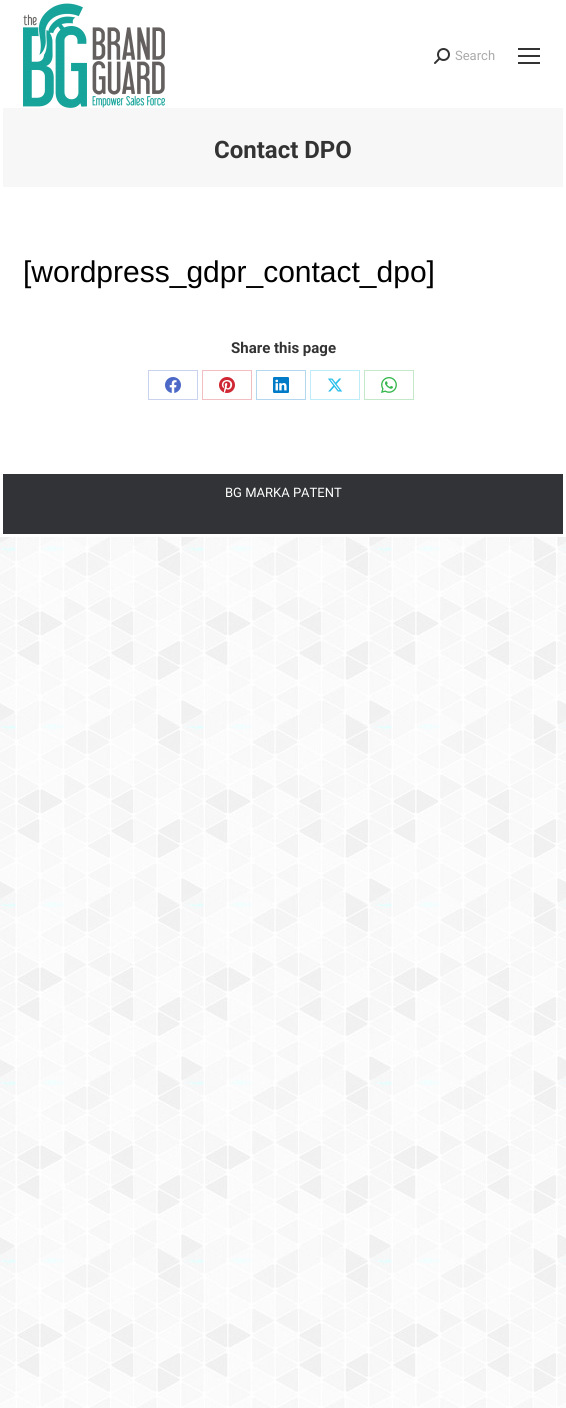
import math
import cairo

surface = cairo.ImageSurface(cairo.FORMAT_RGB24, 566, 1408)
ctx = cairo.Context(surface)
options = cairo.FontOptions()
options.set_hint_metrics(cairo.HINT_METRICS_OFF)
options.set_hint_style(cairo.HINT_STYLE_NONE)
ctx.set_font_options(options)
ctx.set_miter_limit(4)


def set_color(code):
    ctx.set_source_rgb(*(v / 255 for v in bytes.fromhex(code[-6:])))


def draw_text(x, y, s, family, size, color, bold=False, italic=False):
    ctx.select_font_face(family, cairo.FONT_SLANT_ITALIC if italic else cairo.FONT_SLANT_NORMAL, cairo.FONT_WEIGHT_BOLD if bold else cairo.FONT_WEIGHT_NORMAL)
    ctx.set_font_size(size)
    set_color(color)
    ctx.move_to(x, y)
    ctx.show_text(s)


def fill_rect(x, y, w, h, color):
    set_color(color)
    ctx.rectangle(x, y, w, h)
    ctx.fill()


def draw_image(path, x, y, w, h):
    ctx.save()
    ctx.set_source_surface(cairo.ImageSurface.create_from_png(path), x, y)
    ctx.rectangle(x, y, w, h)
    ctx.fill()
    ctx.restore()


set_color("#ffffff")
ctx.paint()
draw_image("assets/img1.png", 0, 537, 566, 871)
draw_image("assets/img2.png", 23, 3, 142, 105)
draw_image("assets/img3.png", 434, 48, 16, 16)
draw_text(455, 60, "Search", "Roboto", 13, "#aaaaaa")
fill_rect(518, 48, 22, 2, "#333333")
fill_rect(518, 55, 22, 2, "#333333")
fill_rect(518, 62, 22, 2, "#333333")
fill_rect(3, 108, 560, 79, "#f7f7f7")
draw_text(214, 158, "Contact DPO", "Roboto", 24, "#333333", bold=True)
draw_text(23, 282, "[wordpress_gdpr_contact_dpo]", "Liberation Sans", 30, "#000000")
draw_text(231, 353, "Share this page", "Roboto", 15, "#333333", bold=True)
ctx.rectangle(148.5, 370.5, 49, 29)
set_color("#c9d2ee")
ctx.set_line_width(1)
ctx.stroke()
draw_image("assets/img4.png", 165, 377, 16, 16)
ctx.rectangle(202.5, 370.5, 49, 29)
set_color("#f1bfc2")
ctx.stroke()
draw_image("assets/img5.png", 219, 377, 16, 16)
ctx.rectangle(256.5, 370.5, 49, 29)
set_color("#b3d7ee")
ctx.stroke()
draw_image("assets/img6.png", 273, 377, 16, 16)
ctx.rectangle(310.5, 370.5, 49, 29)
set_color("#bfecf9")
ctx.stroke()
draw_image("assets/img7.png", 328, 378, 15, 14)
ctx.rectangle(364.5, 370.5, 49, 29)
set_color("#c3e9ca")
ctx.stroke()
draw_image("assets/img8.png", 381, 377, 16, 16)
fill_rect(3, 474, 560, 60, "#313336")
draw_text(225, 497, "BG MARKA PATENT", "Roboto", 13, "#ffffff")
surface.write_to_png("output.png")
